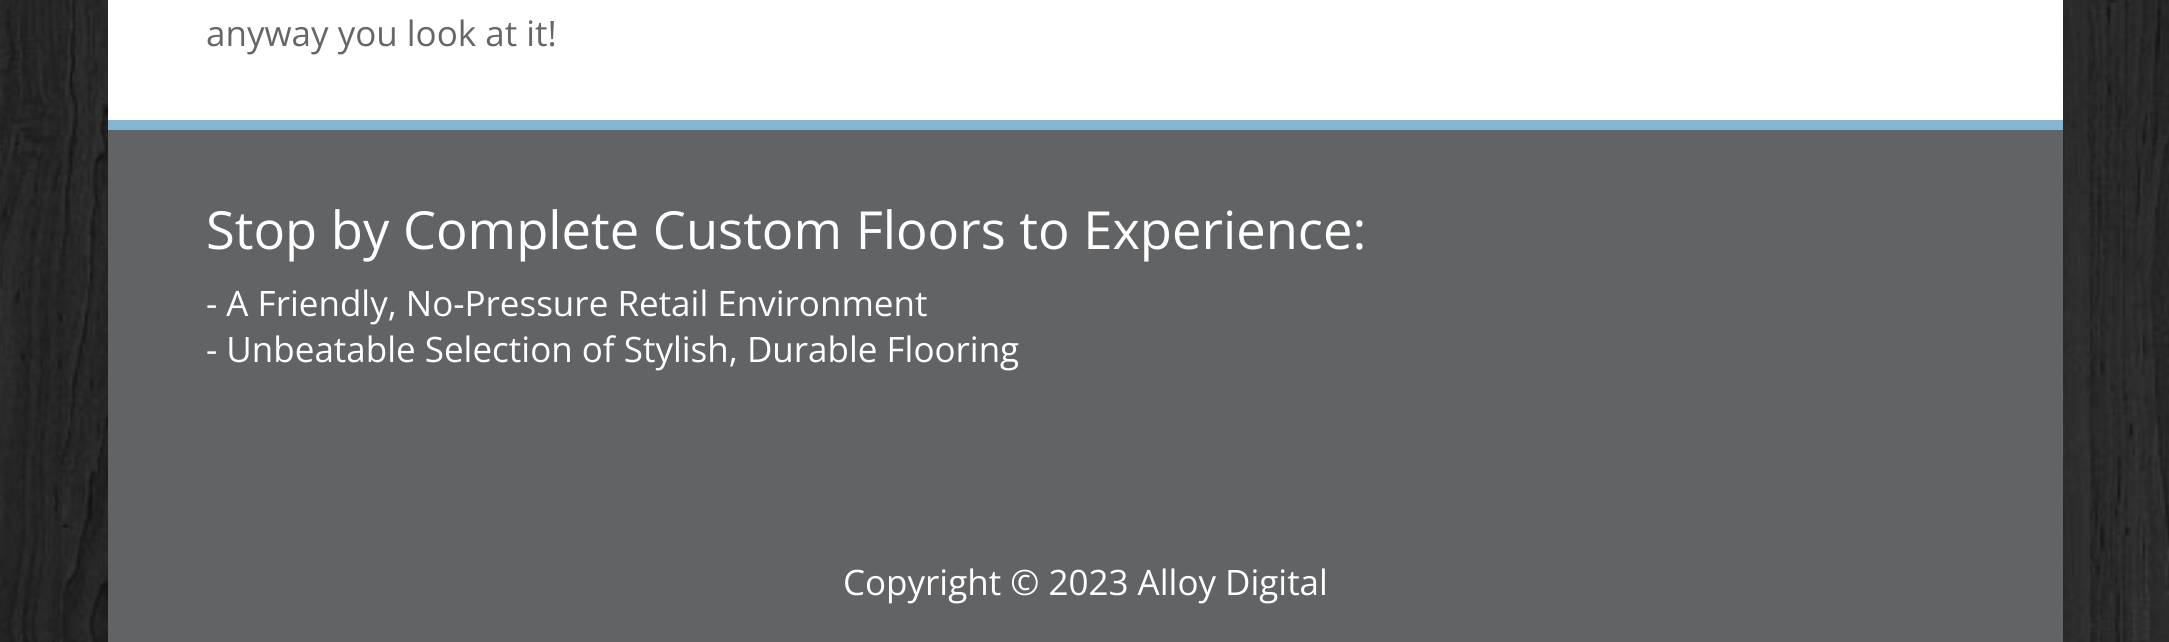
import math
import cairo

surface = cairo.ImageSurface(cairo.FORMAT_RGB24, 2169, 642)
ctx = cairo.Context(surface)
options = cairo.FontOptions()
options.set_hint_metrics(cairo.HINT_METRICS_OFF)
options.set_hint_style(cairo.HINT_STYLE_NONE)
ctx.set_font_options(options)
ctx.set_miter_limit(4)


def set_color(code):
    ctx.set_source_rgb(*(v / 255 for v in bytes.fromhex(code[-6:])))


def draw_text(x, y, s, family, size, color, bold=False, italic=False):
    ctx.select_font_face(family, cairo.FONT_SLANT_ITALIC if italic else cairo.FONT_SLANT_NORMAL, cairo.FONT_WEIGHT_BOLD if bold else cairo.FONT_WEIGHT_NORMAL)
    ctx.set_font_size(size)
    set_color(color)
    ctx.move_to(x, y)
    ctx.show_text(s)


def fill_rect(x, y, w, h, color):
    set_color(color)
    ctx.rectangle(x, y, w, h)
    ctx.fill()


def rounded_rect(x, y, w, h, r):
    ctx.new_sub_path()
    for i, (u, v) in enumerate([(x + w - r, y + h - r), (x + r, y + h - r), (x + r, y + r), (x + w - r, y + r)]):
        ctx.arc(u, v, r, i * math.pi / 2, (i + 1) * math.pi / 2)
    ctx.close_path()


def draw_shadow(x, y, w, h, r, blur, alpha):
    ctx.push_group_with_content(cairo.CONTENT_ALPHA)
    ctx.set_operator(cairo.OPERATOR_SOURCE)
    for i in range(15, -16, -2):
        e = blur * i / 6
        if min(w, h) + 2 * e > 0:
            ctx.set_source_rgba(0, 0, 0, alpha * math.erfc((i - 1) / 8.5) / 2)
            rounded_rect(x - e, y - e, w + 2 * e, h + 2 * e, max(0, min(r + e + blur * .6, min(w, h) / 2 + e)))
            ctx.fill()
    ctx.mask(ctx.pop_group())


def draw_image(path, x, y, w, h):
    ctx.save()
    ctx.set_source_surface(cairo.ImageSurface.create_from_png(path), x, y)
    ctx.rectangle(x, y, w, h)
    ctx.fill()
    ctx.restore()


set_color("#ffffff")
ctx.paint()
draw_image("assets/img1.png", 0, 0, 2169, 642)
set_color("#000000")
draw_shadow(108, -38, 1955, 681, 0, 12.5, 0.2)
fill_rect(108, 0, 1955, 120, "#ffffff")
draw_text(206, 46, "anyway you look at it!", "Open Sans", 35, "#666666")
fill_rect(108, 120, 1955, 10, "#83b6d2")
fill_rect(108, 130, 1955, 512, "#626365")
draw_text(206, 249, "Stop by Complete Custom Floors to Experience:", "Open Sans", 52.5, "#ffffff")
draw_text(206, 316, "- A Friendly, No-Pressure Retail Environment", "Open Sans", 35, "#ffffff")
draw_text(206, 362, "- Unbeatable Selection of Stylish, Durable Flooring", "Open Sans", 35, "#ffffff")
draw_text(843, 595, "Copyright © 2023 Alloy Digital", "Open Sans", 35, "#ffffff")
surface.write_to_png("output.png")
